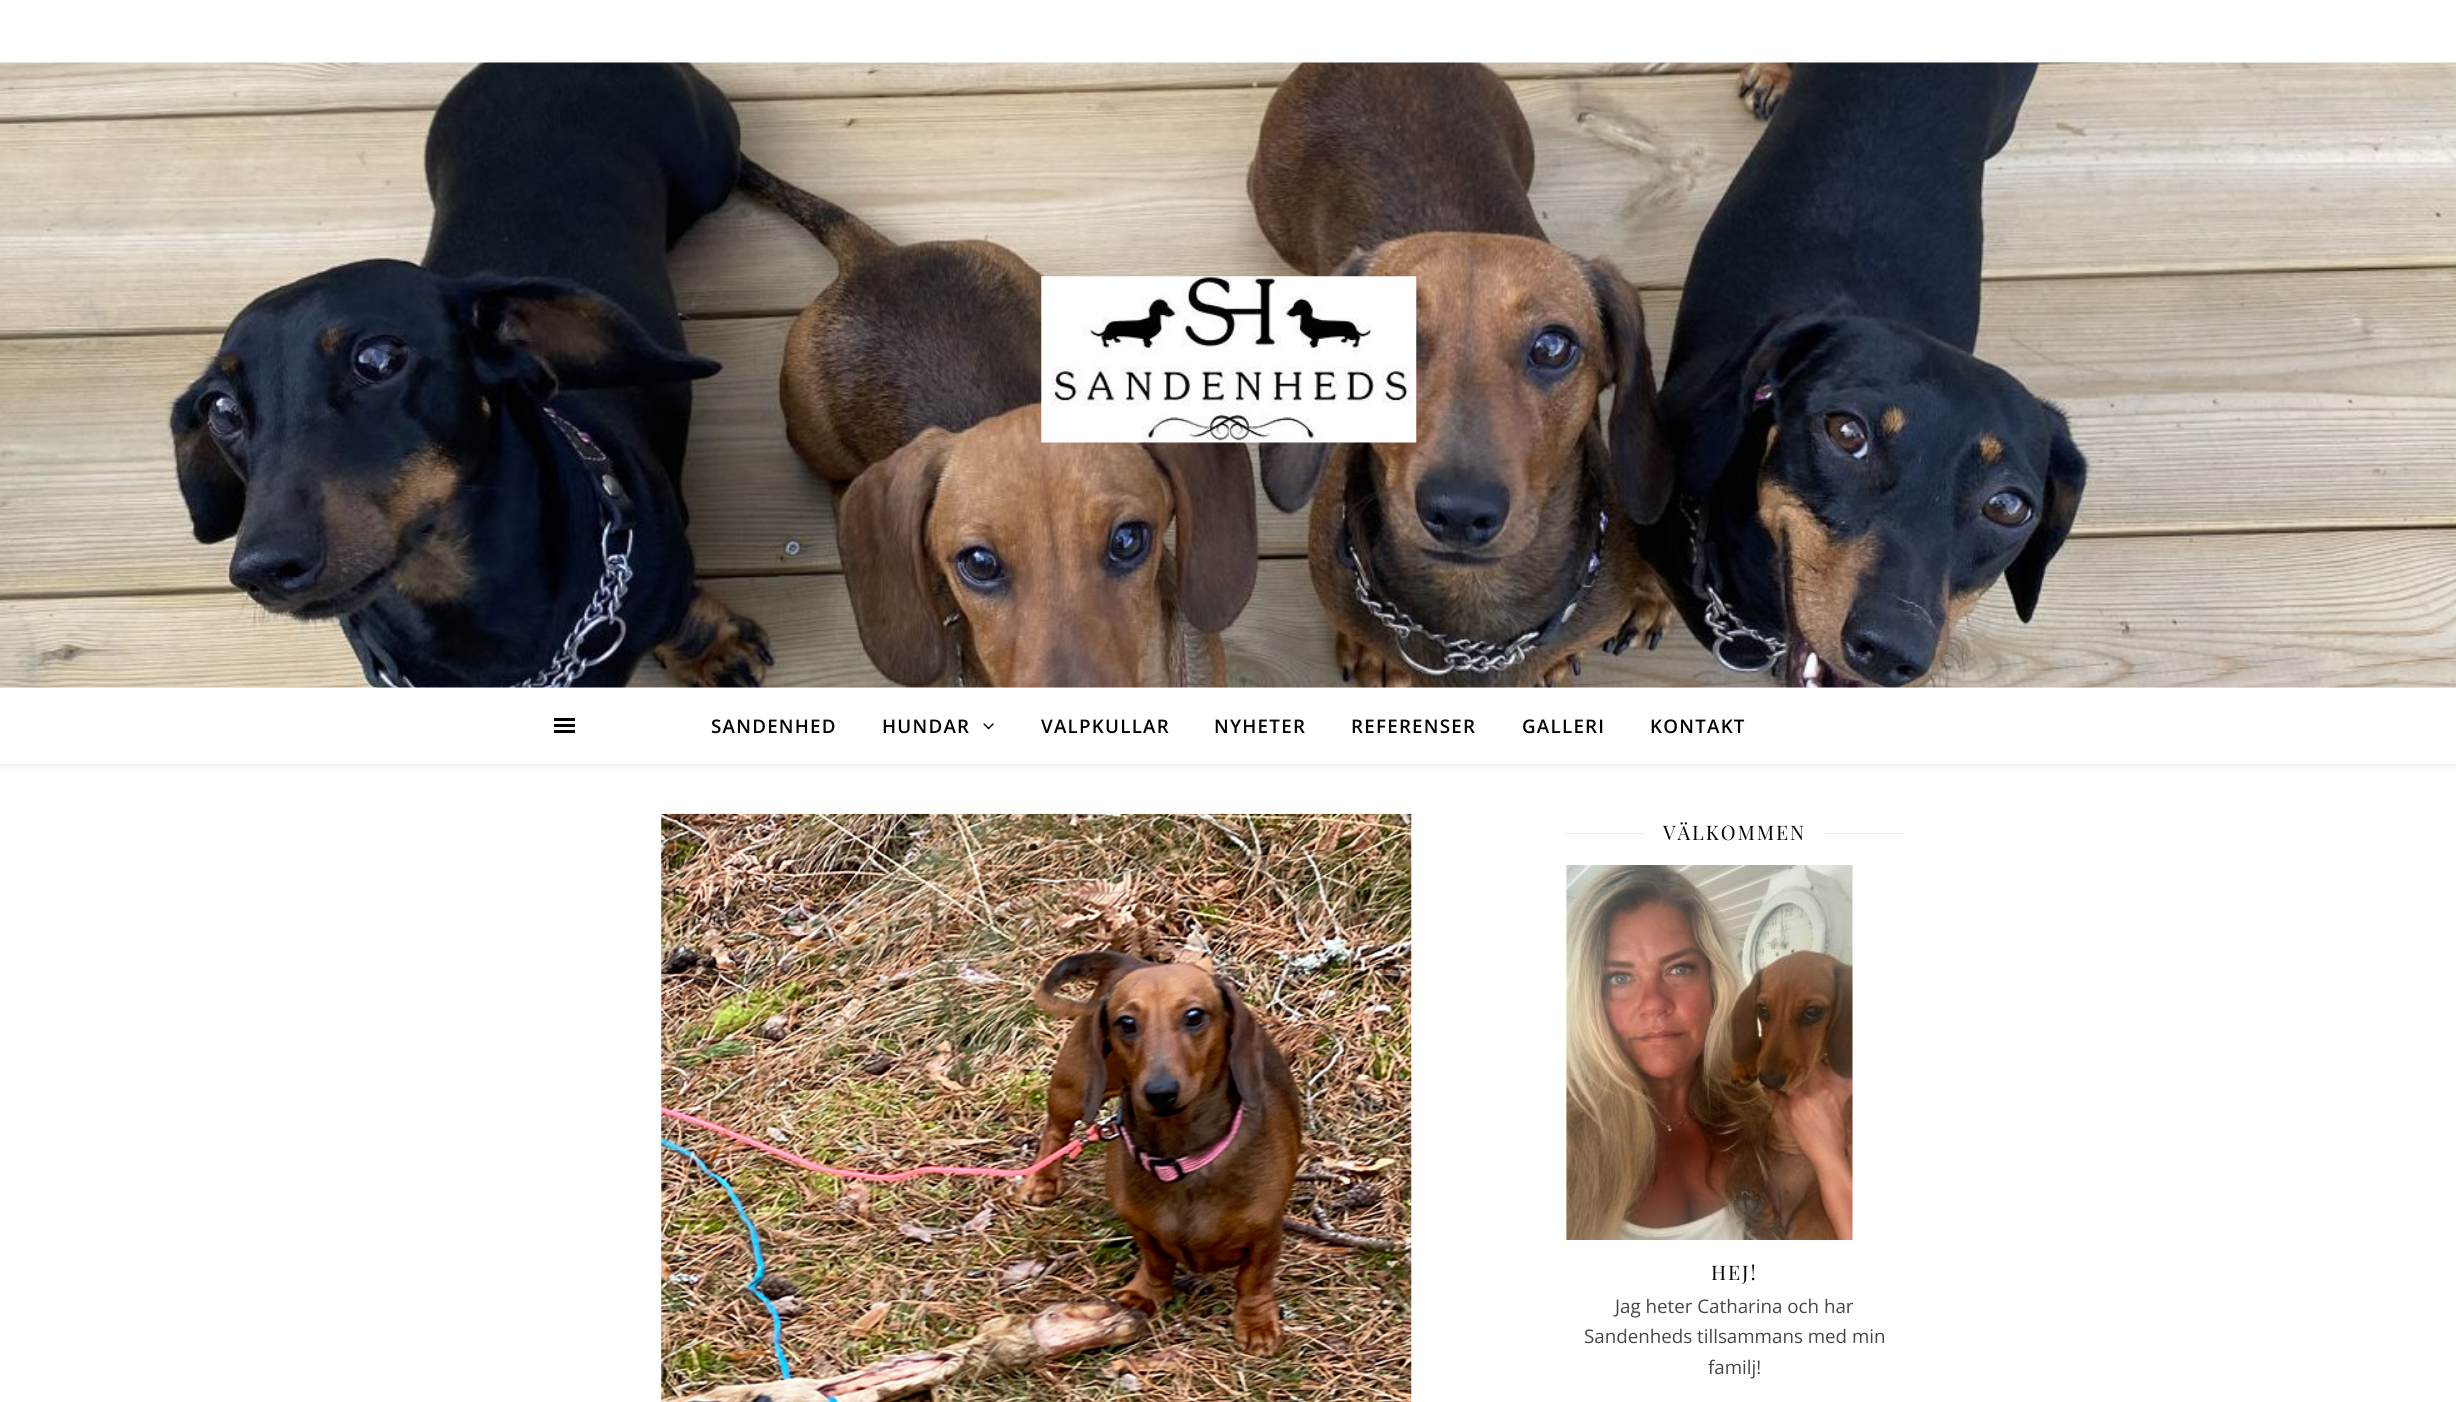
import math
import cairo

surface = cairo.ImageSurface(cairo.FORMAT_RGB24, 2456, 1402)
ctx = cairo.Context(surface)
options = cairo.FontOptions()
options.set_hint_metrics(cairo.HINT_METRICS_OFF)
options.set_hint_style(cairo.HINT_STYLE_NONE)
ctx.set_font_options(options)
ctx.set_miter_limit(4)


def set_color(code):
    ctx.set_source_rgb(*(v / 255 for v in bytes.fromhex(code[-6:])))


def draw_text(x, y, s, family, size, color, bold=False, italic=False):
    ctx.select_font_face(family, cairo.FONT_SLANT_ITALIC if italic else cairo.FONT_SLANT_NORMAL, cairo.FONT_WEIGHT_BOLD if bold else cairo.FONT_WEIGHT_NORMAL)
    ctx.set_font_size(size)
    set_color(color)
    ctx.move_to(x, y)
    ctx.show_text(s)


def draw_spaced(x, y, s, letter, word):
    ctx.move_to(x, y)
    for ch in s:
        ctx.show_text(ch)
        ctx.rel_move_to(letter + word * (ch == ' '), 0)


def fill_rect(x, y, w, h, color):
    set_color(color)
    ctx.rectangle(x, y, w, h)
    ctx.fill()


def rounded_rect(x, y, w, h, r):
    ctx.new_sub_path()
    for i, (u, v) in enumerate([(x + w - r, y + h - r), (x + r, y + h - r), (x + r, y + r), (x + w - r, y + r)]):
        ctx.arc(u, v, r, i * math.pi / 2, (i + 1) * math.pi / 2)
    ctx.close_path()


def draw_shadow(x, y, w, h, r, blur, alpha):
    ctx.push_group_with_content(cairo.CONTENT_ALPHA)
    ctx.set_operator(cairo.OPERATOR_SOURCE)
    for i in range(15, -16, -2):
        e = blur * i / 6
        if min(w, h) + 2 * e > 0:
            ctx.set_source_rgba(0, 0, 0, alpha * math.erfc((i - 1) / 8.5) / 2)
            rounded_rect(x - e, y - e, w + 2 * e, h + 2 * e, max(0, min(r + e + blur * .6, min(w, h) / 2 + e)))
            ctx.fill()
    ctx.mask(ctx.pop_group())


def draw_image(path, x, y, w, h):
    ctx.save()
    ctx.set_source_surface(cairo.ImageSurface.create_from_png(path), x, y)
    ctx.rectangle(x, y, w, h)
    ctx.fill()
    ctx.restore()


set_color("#ffffff")
ctx.paint()
draw_image("assets/img1.png", 0, 62, 2456, 626)
draw_image("assets/img2.png", 1041, 276, 376, 167)
set_color("#000000")
draw_shadow(0, 689, 2456, 76, 0, 3, 0.1)
fill_rect(0, 688, 2456, 76, "#ffffff")
fill_rect(554, 718, 21, 3, "#000000")
fill_rect(554, 724, 21, 3, "#000000")
fill_rect(554, 730, 21, 3, "#000000")
ctx.select_font_face("Open Sans SemiBold")
ctx.set_font_size(18.75)
set_color("#030303")
draw_spaced(711, 733, "SANDENHED", 1.25, 0)
draw_spaced(882, 733, "HUNDAR", 1.25, 0)
draw_image("assets/img3.png", 983, 723, 11, 7)
draw_spaced(1041, 733, "VALPKULLAR", 1.25, 0)
draw_spaced(1214, 733, "NYHETER", 1.25, 0)
draw_spaced(1351, 733, "REFERENSER", 1.25, 0)
draw_spaced(1522, 733, "GALLERI", 1.25, 0)
draw_spaced(1650, 733, "KONTAKT", 1.25, 0)
draw_image("assets/img4.png", 661, 813, 751, 589)
fill_rect(1566, 833, 78, 1, "#e8e8e8")
ctx.select_font_face("Playfair Display")
ctx.set_font_size(20)
set_color("#030303")
draw_spaced(1663, 840, "VÄLKOMMEN", 1.9, 0)
fill_rect(1825, 833, 79, 1, "#e8e8e8")
draw_image("assets/img5.png", 1566, 865, 287, 375)
set_color("#030303")
draw_spaced(1711, 1280, "HEJ!", 1.9, 0)
draw_text(1615, 1313, "Jag heter Catharina och har", "Open Sans", 18.75, "#464646")
draw_text(1584, 1343, "Sandenheds tillsammans med min", "Open Sans", 18.75, "#464646")
draw_text(1708, 1374, "familj!", "Open Sans", 18.75, "#464646")
surface.write_to_png("output.png")
